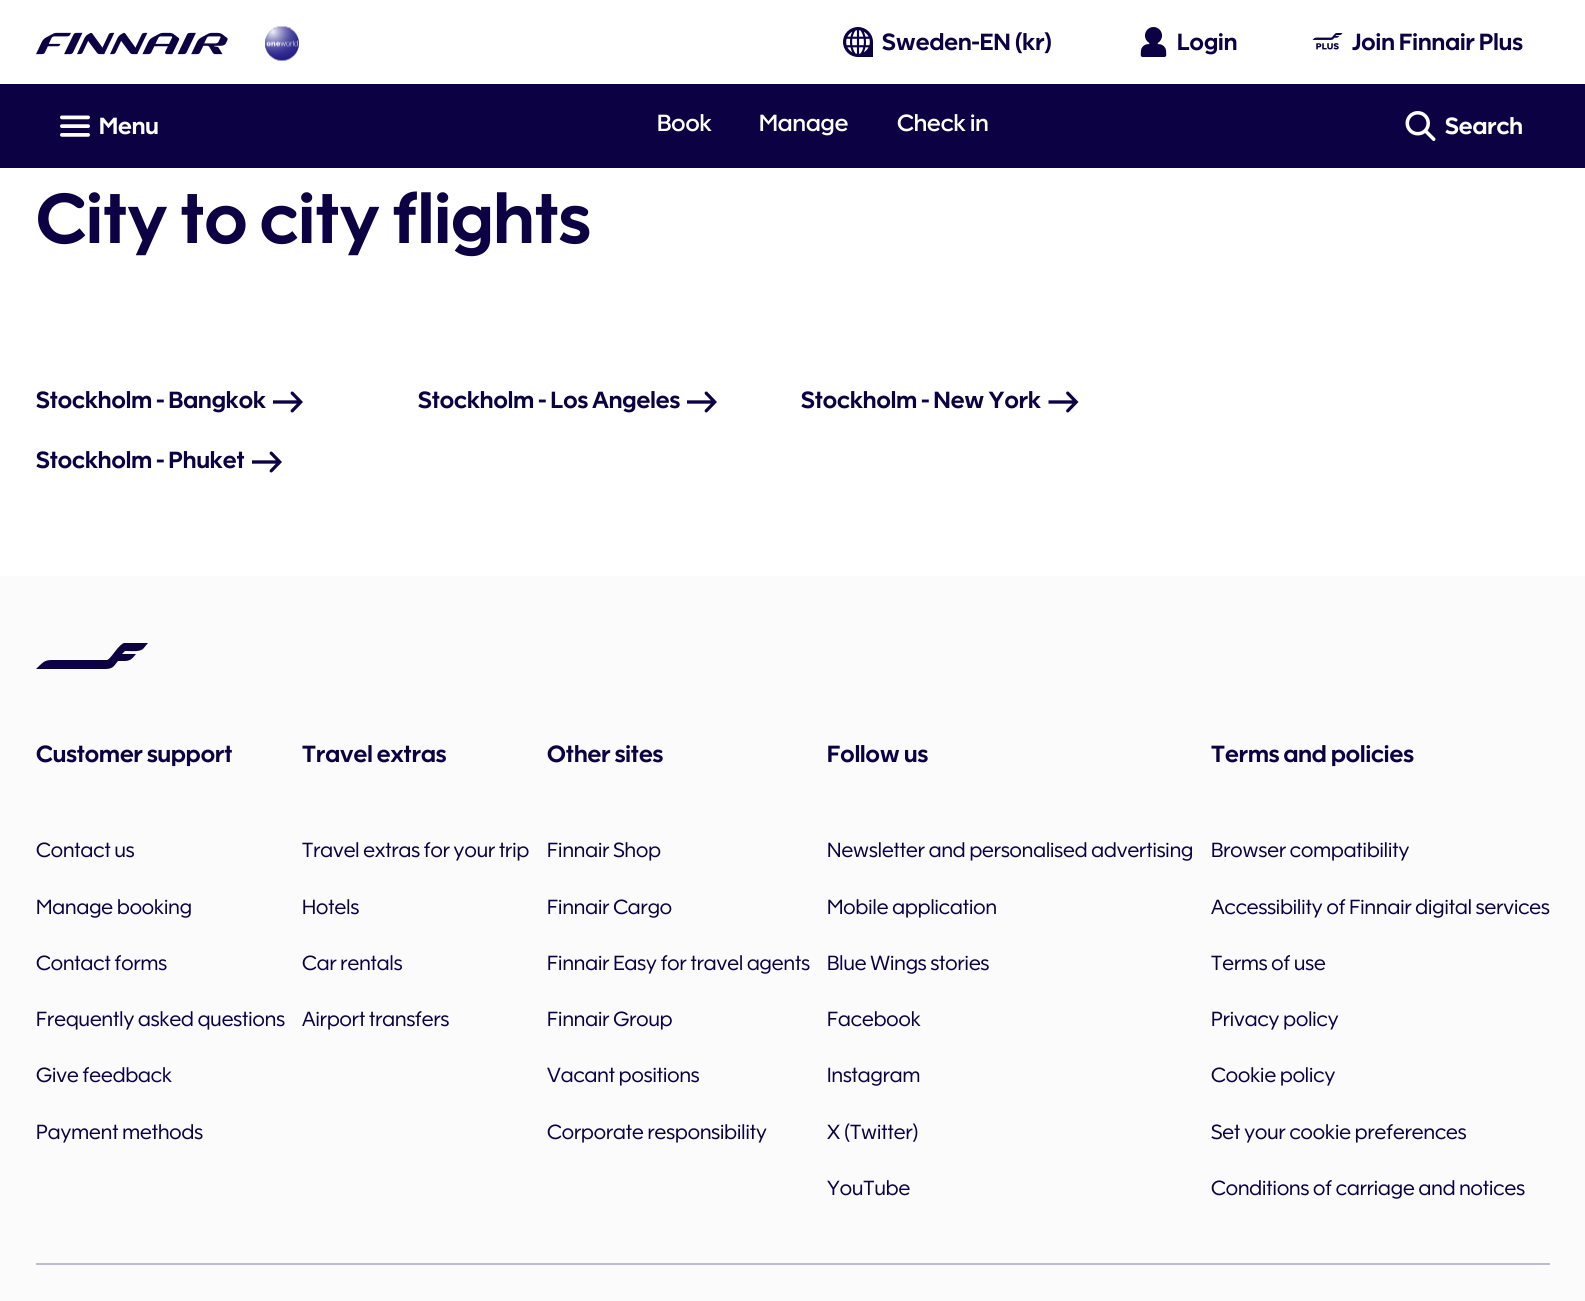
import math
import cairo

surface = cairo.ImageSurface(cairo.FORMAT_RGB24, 1585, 1301)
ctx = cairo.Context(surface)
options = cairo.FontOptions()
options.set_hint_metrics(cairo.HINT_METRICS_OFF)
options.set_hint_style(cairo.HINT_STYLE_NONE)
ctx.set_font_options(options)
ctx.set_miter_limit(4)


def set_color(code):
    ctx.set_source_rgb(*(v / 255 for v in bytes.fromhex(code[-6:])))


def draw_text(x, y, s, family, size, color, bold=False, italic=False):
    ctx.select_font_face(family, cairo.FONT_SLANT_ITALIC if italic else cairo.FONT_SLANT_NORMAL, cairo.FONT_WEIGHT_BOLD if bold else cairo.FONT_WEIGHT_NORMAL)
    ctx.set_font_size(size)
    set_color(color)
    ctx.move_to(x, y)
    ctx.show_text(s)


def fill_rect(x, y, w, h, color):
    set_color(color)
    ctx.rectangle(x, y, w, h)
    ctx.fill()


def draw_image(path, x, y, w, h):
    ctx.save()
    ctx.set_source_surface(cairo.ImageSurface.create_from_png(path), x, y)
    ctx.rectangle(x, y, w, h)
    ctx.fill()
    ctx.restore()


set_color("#ffffff")
ctx.paint()
draw_image("assets/img1.png", 36, 32, 192, 23)
draw_image("assets/img2.png", 265, 26, 34, 35)
draw_image("assets/img3.png", 843, 27, 30, 30)
draw_text(882, 50, "Sweden-EN (kr)", "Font", 24, "#0c0243", bold=True)
draw_image("assets/img4.png", 1140, 27, 27, 30)
draw_text(1177, 50, "Login", "Font", 24, "#0c0243", bold=True)
draw_image("assets/img5.png", 1312, 33, 31, 17)
draw_text(1352, 50, "Join Finnair Plus", "Font", 24, "#0c0243", bold=True)
fill_rect(0, 84, 1585, 84, "#0c0243")
draw_image("assets/img6.png", 60, 115, 30, 22)
draw_text(99, 134, "Menu", "Font", 24, "#ffffff", bold=True)
draw_text(657, 131, "Book", "Font Medium", 24, "#ffffff")
draw_text(759, 131, "Manage", "Font Medium", 24, "#ffffff")
draw_text(897, 131, "Check in", "Font Medium", 24, "#ffffff")
draw_image("assets/img7.png", 1405, 111, 31, 30)
draw_text(1445, 134, "Search", "Font", 24, "#ffffff", bold=True)
draw_text(36, 243, "City to city flights", "Font", 72, "#0c0243", bold=True)
draw_text(36, 408, "Stockholm - Bangkok", "Font", 24, "#0c0243", bold=True)
draw_image("assets/img8.png", 273, 391, 30, 22)
draw_text(418, 408, "Stockholm - Los Angeles", "Font", 24, "#0c0243", bold=True)
draw_image("assets/img8.png", 687, 391, 30, 22)
draw_text(801, 408, "Stockholm - New York", "Font", 24, "#0c0243", bold=True)
draw_image("assets/img9.png", 1048, 391, 31, 22)
draw_text(36, 468, "Stockholm - Phuket", "Font", 24, "#0c0243", bold=True)
draw_image("assets/img8.png", 252, 451, 30, 22)
fill_rect(0, 576, 1585, 725, "#fbfbfb")
fill_rect(36, 1263, 1514, 2, "#bbbcd4")
set_color("#0c0243")
ctx.new_path()
ctx.move_to(59, 669)
ctx.line_to(36, 669)
ctx.curve_to(46, 659, 45, 660, 60, 660)
ctx.line_to(107, 660)
ctx.curve_to(111, 659, 118, 645, 124, 643)
ctx.line_to(148, 643)
ctx.line_to(143, 649)
ctx.curve_to(139, 652, 132, 651, 127, 651)
ctx.line_to(125, 651)
ctx.line_to(122, 654)
ctx.line_to(136, 654)
ctx.curve_to(130, 662, 128, 661, 118, 661)
ctx.line_to(114, 666)
ctx.curve_to(112, 668, 110, 669, 105, 669)
ctx.line_to(59, 669)
ctx.fill()
draw_text(36, 762, "Customer support", "Font", 24, "#0c0243", bold=True)
draw_text(36, 857, "Contact us", "Font", 21, "#0c0243")
draw_text(36, 914, "Manage booking", "Font", 21, "#0c0243")
draw_text(36, 970, "Contact forms", "Font", 21, "#0c0243")
draw_text(36, 1026, "Frequently asked questions", "Font", 21, "#0c0243")
draw_text(36, 1082, "Give feedback", "Font", 21, "#0c0243")
draw_text(36, 1139, "Payment methods", "Font", 21, "#0c0243")
draw_text(302, 762, "Travel extras", "Font", 24, "#0c0243", bold=True)
draw_text(302, 857, "Travel extras for your trip", "Font", 21, "#0c0243")
draw_text(302, 914, "Hotels", "Font", 21, "#0c0243")
draw_text(302, 970, "Car rentals", "Font", 21, "#0c0243")
draw_text(302, 1026, "Airport transfers", "Font", 21, "#0c0243")
draw_text(547, 762, "Other sites", "Font", 24, "#0c0243", bold=True)
draw_text(547, 857, "Finnair Shop", "Font", 21, "#0c0243")
draw_text(547, 914, "Finnair Cargo", "Font", 21, "#0c0243")
draw_text(547, 970, "Finnair Easy for travel agents", "Font", 21, "#0c0243")
draw_text(547, 1026, "Finnair Group", "Font", 21, "#0c0243")
draw_text(547, 1082, "Vacant positions", "Font", 21, "#0c0243")
draw_text(547, 1139, "Corporate responsibility", "Font", 21, "#0c0243")
draw_text(827, 762, "Follow us", "Font", 24, "#0c0243", bold=True)
draw_text(827, 857, "Newsletter and personalised advertising", "Font", 21, "#0c0243")
draw_text(827, 914, "Mobile application", "Font", 21, "#0c0243")
draw_text(827, 970, "Blue Wings stories", "Font", 21, "#0c0243")
draw_text(827, 1026, "Facebook", "Font", 21, "#0c0243")
draw_text(827, 1082, "Instagram", "Font", 21, "#0c0243")
draw_text(827, 1139, "X (Twitter)", "Font", 21, "#0c0243")
draw_text(827, 1195, "YouTube", "Font", 21, "#0c0243")
draw_text(1211, 762, "Terms and policies", "Font", 24, "#0c0243", bold=True)
draw_text(1211, 857, "Browser compatibility", "Font", 21, "#0c0243")
draw_text(1211, 914, "Accessibility of Finnair digital services", "Font", 21, "#0c0243")
draw_text(1211, 970, "Terms of use", "Font", 21, "#0c0243")
draw_text(1211, 1026, "Privacy policy", "Font", 21, "#0c0243")
draw_text(1211, 1082, "Cookie policy", "Font", 21, "#0c0243")
draw_text(1211, 1139, "Set your cookie preferences", "Font", 21, "#0c0243")
draw_text(1211, 1195, "Conditions of carriage and notices", "Font", 21, "#0c0243")
surface.write_to_png("output.png")
